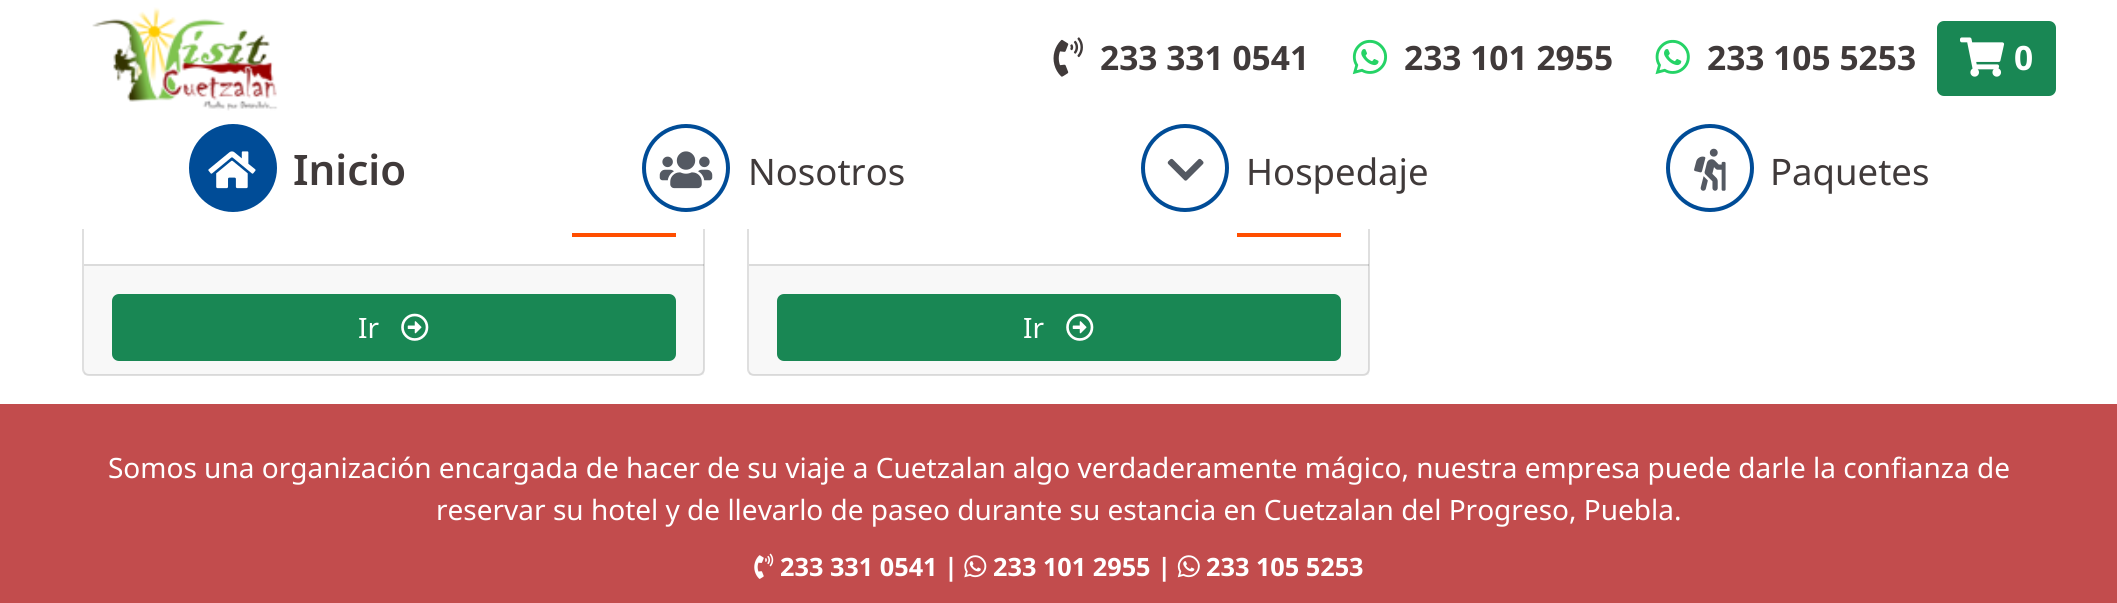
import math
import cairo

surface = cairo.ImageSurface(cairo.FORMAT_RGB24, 2117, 603)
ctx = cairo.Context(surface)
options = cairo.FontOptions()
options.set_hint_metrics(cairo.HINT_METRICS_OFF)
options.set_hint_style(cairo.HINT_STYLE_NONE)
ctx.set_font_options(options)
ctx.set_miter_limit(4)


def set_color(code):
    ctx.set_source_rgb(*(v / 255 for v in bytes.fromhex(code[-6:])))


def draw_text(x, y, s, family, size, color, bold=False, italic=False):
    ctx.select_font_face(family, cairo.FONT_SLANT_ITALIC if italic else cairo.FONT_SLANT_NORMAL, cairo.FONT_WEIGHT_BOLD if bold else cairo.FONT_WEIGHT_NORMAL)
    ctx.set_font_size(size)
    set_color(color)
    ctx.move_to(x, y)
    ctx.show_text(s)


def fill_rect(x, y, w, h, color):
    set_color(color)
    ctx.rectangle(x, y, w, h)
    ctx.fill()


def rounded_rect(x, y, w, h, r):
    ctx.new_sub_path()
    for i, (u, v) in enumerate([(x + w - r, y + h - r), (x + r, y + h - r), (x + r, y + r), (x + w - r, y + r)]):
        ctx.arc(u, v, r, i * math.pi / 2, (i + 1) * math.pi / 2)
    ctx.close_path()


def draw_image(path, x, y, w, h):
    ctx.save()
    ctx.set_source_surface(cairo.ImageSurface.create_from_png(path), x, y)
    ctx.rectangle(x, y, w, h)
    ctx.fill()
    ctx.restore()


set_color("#ffffff")
ctx.paint()
rounded_rect(83, -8, 621, 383, 6)
set_color("#dfdfdf")
ctx.stroke()
rounded_rect(748, -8, 621, 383, 6)
ctx.stroke()
fill_rect(82, 0, 1288, 229, "#ffffff")
draw_image("assets/img1.png", 92, 7, 186, 104)
draw_image("assets/img2.png", 1053, 37, 30, 40)
draw_text(1100, 70, "233 331 0541", "Noto Sans", 33.5, "#403a3a", bold=True)
draw_image("assets/img3.png", 1352, 39, 36, 36)
draw_text(1404, 70, "233 101 2955", "Noto Sans", 33.5, "#403a3a", bold=True)
draw_image("assets/img4.png", 1655, 39, 35, 36)
draw_text(1707, 70, "233 105 5253", "Noto Sans", 33.5, "#403a3a", bold=True)
set_color("#198754")
rounded_rect(1938, 22, 117, 73, 6)
ctx.fill_preserve()
ctx.stroke()
draw_image("assets/img5.png", 1960, 37, 45, 40)
draw_text(2014, 70, "0", "Noto Sans", 33.5, "#ffffff", bold=True)
set_color("#004c97")
ctx.new_path()
ctx.arc(233, 168, 42, 0, 2 * math.pi)
ctx.fill_preserve()
ctx.set_line_width(4)
ctx.stroke()
draw_image("assets/img6.png", 208, 151, 48, 38)
draw_text(293, 185, "Inicio", "Noto Sans SemiBold", 42, "#403a3a")
ctx.new_path()
ctx.arc(686, 168, 42, 0, 2 * math.pi)
set_color("#004c97")
ctx.stroke()
draw_image("assets/img7.png", 659, 151, 54, 38)
draw_text(748, 185, "Nosotros", "Noto Sans", 36.5, "#403a3a")
ctx.new_path()
ctx.arc(1185, 168, 42, 0, 2 * math.pi)
set_color("#004c97")
ctx.stroke()
draw_image("assets/img8.png", 1167, 158, 37, 23)
draw_text(1246, 185, "Hospedaje", "Noto Sans", 36.5, "#403a3a")
ctx.new_path()
ctx.arc(1710, 168, 42, 0, 2 * math.pi)
set_color("#004c97")
ctx.stroke()
draw_image("assets/img9.png", 1694, 148, 32, 43)
draw_text(1770, 185, "Paquetes", "Noto Sans", 36.5, "#403a3a")
fill_rect(572, 233, 104, 4, "#ff4e00")
ctx.set_source_rgba(0, 0, 0, 0.03)
ctx.rectangle(84, 264, 620, 111)
ctx.fill()
ctx.set_source_rgba(0, 0, 0, 0.12)
ctx.rectangle(84, 264, 620, 2)
ctx.fill()
set_color("#198754")
rounded_rect(113, 295, 562, 65, 6)
ctx.fill_preserve()
ctx.set_line_width(2)
ctx.stroke()
draw_text(358, 338, "Ir", "Noto Sans", 28, "#ffffff")
draw_image("assets/img10.png", 401, 313, 28, 28)
fill_rect(1237, 233, 104, 4, "#ff4e00")
ctx.set_source_rgba(0, 0, 0, 0.03)
ctx.rectangle(749, 264, 620, 111)
ctx.fill()
ctx.set_source_rgba(0, 0, 0, 0.12)
ctx.rectangle(749, 264, 620, 2)
ctx.fill()
set_color("#198754")
rounded_rect(778, 295, 562, 65, 6)
ctx.fill_preserve()
ctx.stroke()
draw_text(1023, 338, "Ir", "Noto Sans", 28, "#ffffff")
draw_image("assets/img10.png", 1066, 313, 28, 28)
fill_rect(0, 404, 2117, 199, "#c24c4d")
draw_text(108, 478, "Somos una organización encargada de hacer de su viaje a Cuetzalan algo verdaderamente mágico, nuestra empresa puede darle la confianza de", "Noto Sans", 28, "#ffffff")
draw_text(436, 520, "reservar su hotel y de llevarlo de paseo durante su estancia en Cuetzalan del Progreso, Puebla.", "Noto Sans", 28, "#ffffff")
draw_image("assets/img11.png", 754, 553, 20, 26)
draw_text(780, 576, "233 331 0541", "Noto Sans", 25.25, "#ffffff", bold=True)
draw_text(944, 576, "|", "Noto Sans", 25.25, "#ffffff", bold=True)
draw_image("assets/img12.png", 964, 555, 23, 23)
draw_text(993, 576, "233 101 2955 |", "Noto Sans", 25.25, "#ffffff", bold=True)
draw_image("assets/img13.png", 1177, 555, 23, 23)
draw_text(1206, 576, "233 105 5253", "Noto Sans", 25.25, "#ffffff", bold=True)
surface.write_to_png("output.png")
